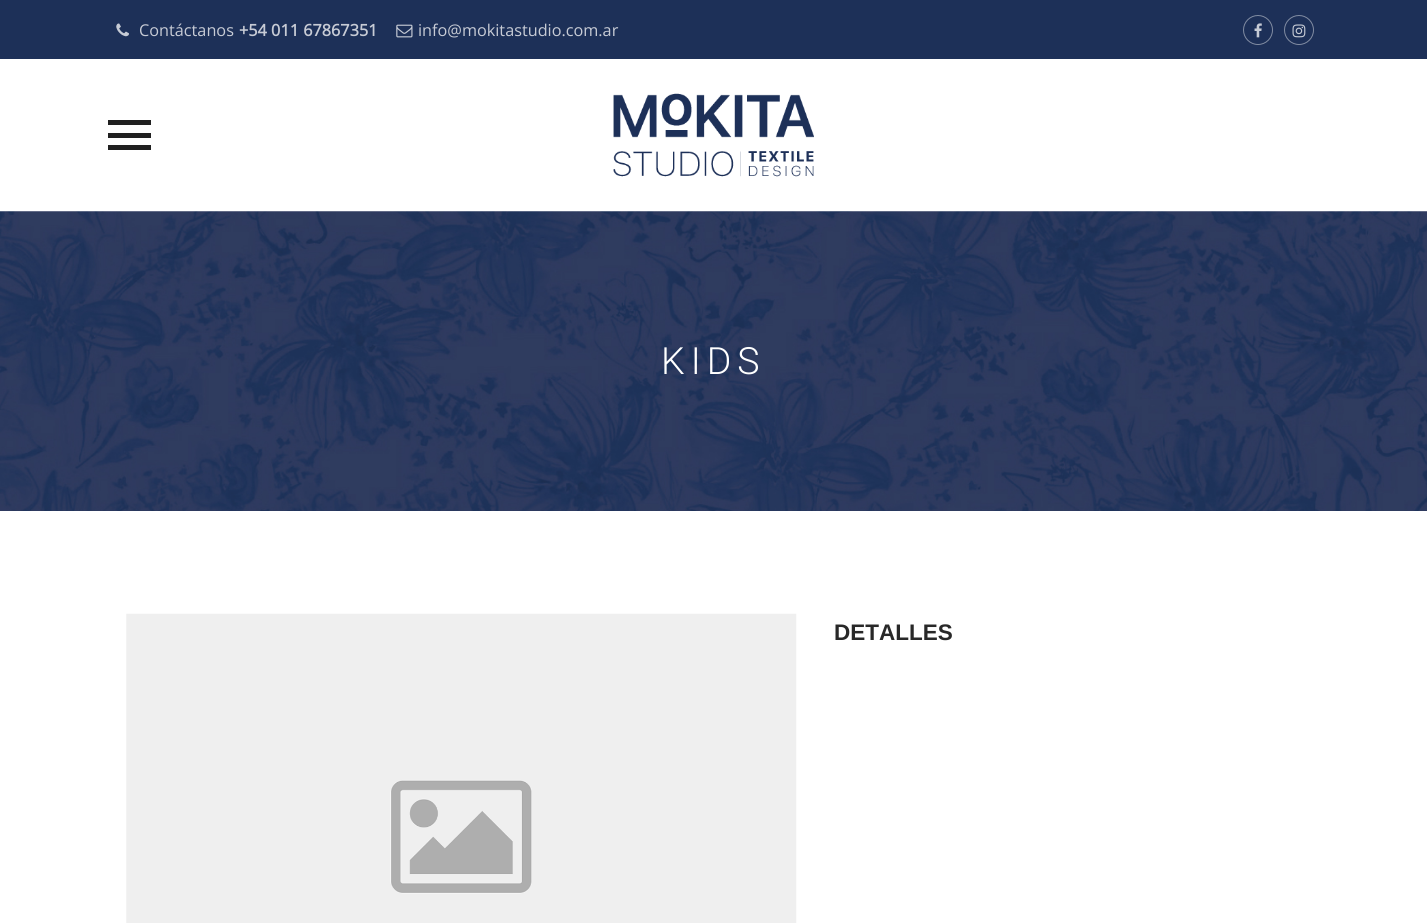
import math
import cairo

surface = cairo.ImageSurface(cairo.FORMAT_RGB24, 1427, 923)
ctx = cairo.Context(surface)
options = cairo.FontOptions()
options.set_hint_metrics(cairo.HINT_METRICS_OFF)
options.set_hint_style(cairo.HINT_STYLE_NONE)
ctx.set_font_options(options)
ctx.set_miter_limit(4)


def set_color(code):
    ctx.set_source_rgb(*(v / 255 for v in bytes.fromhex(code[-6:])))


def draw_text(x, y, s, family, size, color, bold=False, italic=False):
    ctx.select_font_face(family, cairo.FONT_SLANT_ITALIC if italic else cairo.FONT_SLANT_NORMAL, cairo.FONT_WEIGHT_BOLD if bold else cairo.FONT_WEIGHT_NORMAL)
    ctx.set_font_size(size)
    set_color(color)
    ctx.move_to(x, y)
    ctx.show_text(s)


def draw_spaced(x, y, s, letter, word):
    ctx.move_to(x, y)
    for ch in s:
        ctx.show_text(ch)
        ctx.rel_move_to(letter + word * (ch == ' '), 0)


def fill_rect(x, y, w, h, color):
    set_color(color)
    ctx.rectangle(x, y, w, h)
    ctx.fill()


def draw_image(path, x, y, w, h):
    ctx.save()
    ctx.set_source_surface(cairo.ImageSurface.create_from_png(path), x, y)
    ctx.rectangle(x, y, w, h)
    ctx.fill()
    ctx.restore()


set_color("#ffffff")
ctx.paint()
fill_rect(0, 0, 1427, 59, "#1d3058")
draw_image("assets/img1.png", 116, 23, 13, 14)
draw_text(139, 36, "Contáctanos", "Open Sans", 16.25, "#c7cbd5")
draw_text(239, 36, "+54 011 67867351", "Open Sans", 16.25, "#c7cbd5", bold=True)
draw_image("assets/img2.png", 396, 24, 17, 14)
draw_text(418, 36, "info@mokitastudio.com.ar", "Open Sans", 16.25, "#c7cbd5")
ctx.new_path()
ctx.arc(1258, 30, 14.5, 0, 2 * math.pi)
set_color("#808ba1")
ctx.set_line_width(1)
ctx.stroke()
draw_image("assets/img3.png", 1254, 23, 8, 15)
ctx.arc(1299, 30, 14.5, 0, 2 * math.pi)
ctx.stroke()
draw_image("assets/img4.png", 1292, 24, 14, 14)
fill_rect(108, 133, 43, 5, "#202020")
fill_rect(108, 120, 43, 5, "#202020")
fill_rect(108, 145, 43, 5, "#202020")
draw_image("assets/img5.png", 613, 93, 201, 84)
draw_image("assets/img6.png", 0, 211, 1427, 300)
ctx.select_font_face("Roboto Light")
ctx.set_font_size(37.5)
set_color("#ffffff")
draw_spaced(661, 374, "KIDS", 6, 0)
draw_image("assets/img7.png", 126, 613, 671, 310)
draw_text(834, 640, "DETALLES", "Arimo", 22.5, "#282828", bold=True)
surface.write_to_png("output.png")
